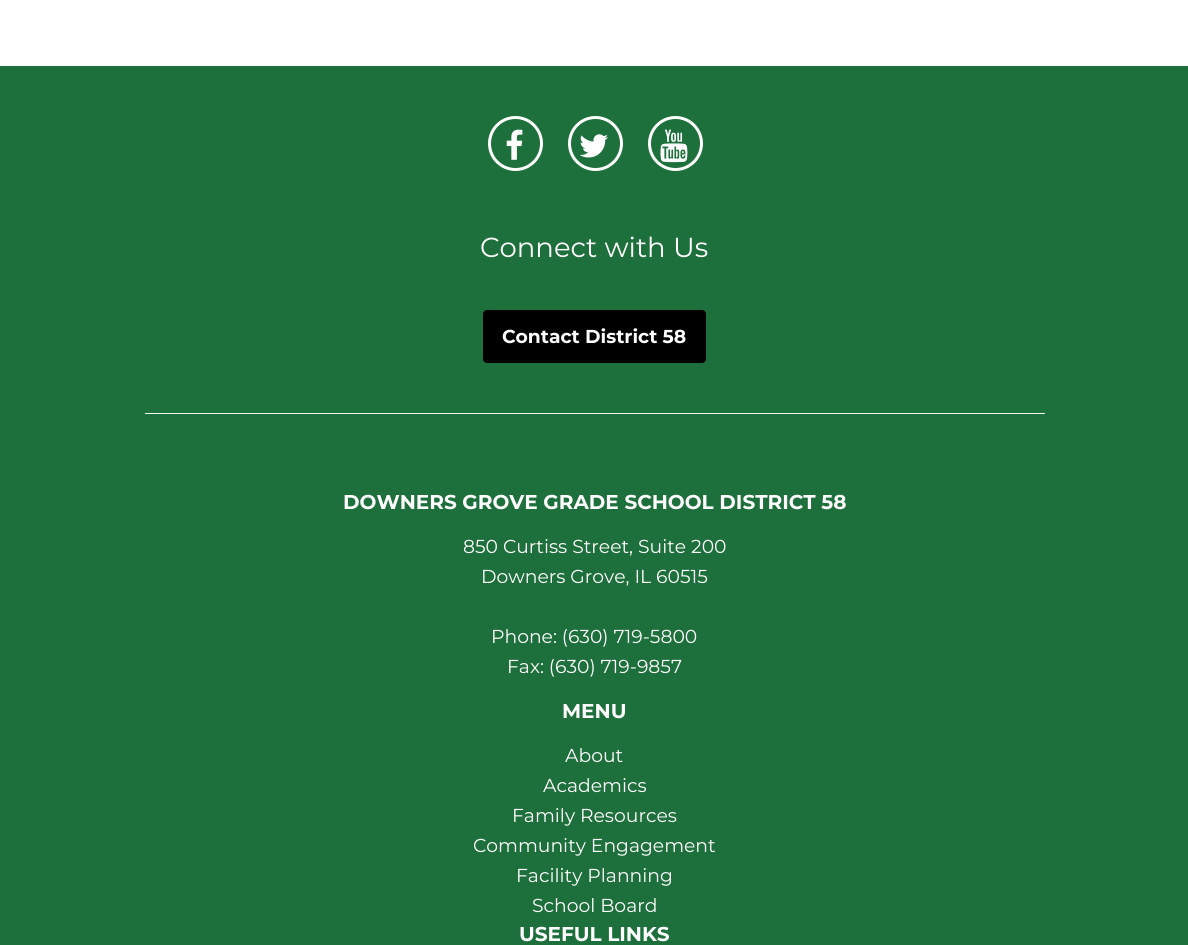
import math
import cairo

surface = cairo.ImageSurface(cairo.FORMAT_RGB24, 1188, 945)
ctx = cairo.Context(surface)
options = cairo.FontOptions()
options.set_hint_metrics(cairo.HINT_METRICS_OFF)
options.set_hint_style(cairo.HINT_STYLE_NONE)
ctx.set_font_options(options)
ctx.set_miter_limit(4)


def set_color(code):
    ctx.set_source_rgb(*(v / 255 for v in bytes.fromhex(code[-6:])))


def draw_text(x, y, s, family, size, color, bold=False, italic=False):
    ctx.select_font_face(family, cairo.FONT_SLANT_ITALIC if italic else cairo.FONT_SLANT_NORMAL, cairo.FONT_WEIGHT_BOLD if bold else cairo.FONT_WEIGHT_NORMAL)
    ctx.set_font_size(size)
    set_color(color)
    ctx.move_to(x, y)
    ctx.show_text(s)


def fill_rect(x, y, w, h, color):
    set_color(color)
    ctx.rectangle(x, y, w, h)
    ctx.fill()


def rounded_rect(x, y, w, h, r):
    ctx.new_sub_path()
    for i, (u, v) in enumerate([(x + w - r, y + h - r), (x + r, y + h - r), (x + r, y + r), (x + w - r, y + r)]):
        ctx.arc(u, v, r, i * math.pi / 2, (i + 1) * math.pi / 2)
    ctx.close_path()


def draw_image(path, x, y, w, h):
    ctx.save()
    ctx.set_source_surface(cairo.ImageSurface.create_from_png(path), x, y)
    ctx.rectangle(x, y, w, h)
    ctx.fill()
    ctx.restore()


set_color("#ffffff")
ctx.paint()
fill_rect(0, 66, 1188, 879, "#1d6f3b")
ctx.arc(515.5, 143.5, 26, 0, 2 * math.pi)
set_color("#ffffff")
ctx.set_line_width(3)
ctx.stroke()
draw_image("assets/img1.png", 506, 129, 17, 31)
ctx.arc(595.5, 143.5, 26, 0, 2 * math.pi)
ctx.stroke()
draw_image("assets/img2.png", 579, 134, 29, 24)
ctx.arc(675.5, 143.5, 26, 0, 2 * math.pi)
ctx.stroke()
draw_image("assets/img3.png", 660, 129, 28, 34)
draw_text(480, 257, "Connect with Us", "Montserrat", 27.5, "#ffffff")
set_color("#000000")
rounded_rect(483.5, 310.5, 222, 52, 3.5)
ctx.fill_preserve()
ctx.set_line_width(1)
ctx.stroke()
draw_text(502, 343, "Contact District 58", "Montserrat", 18.75, "#ffffff", bold=True)
fill_rect(145, 413, 900, 1, "#f4f4f4")
draw_text(343, 509, "DOWNERS GROVE GRADE SCHOOL DISTRICT 58", "Montserrat", 20, "#ffffff", bold=True)
draw_text(463, 553, "850 Curtiss Street, Suite 200", "Montserrat", 18.75, "#ffffff")
draw_text(481, 583, "Downers Grove, IL 60515", "Montserrat", 18.75, "#ffffff")
draw_text(491, 643, "Phone: (630) 719-5800", "Montserrat", 18.75, "#ffffff")
draw_text(507, 673, "Fax: (630) 719-9857", "Montserrat", 18.75, "#ffffff")
draw_text(562, 718, "MENU", "Montserrat", 20, "#ffffff", bold=True)
draw_text(565, 762, "About", "Montserrat", 18.75, "#ffffff")
draw_text(543, 792, "Academics", "Montserrat", 18.75, "#ffffff")
draw_text(512, 822, "Family Resources", "Montserrat", 18.75, "#ffffff")
draw_text(473, 852, "Community Engagement", "Montserrat", 18.75, "#ffffff")
draw_text(516, 882, "Facility Planning", "Montserrat", 18.75, "#ffffff")
draw_text(532, 912, "School Board", "Montserrat", 18.75, "#ffffff")
draw_text(519, 941, "USEFUL LINKS", "Montserrat", 20, "#ffffff", bold=True)
surface.write_to_png("output.png")
